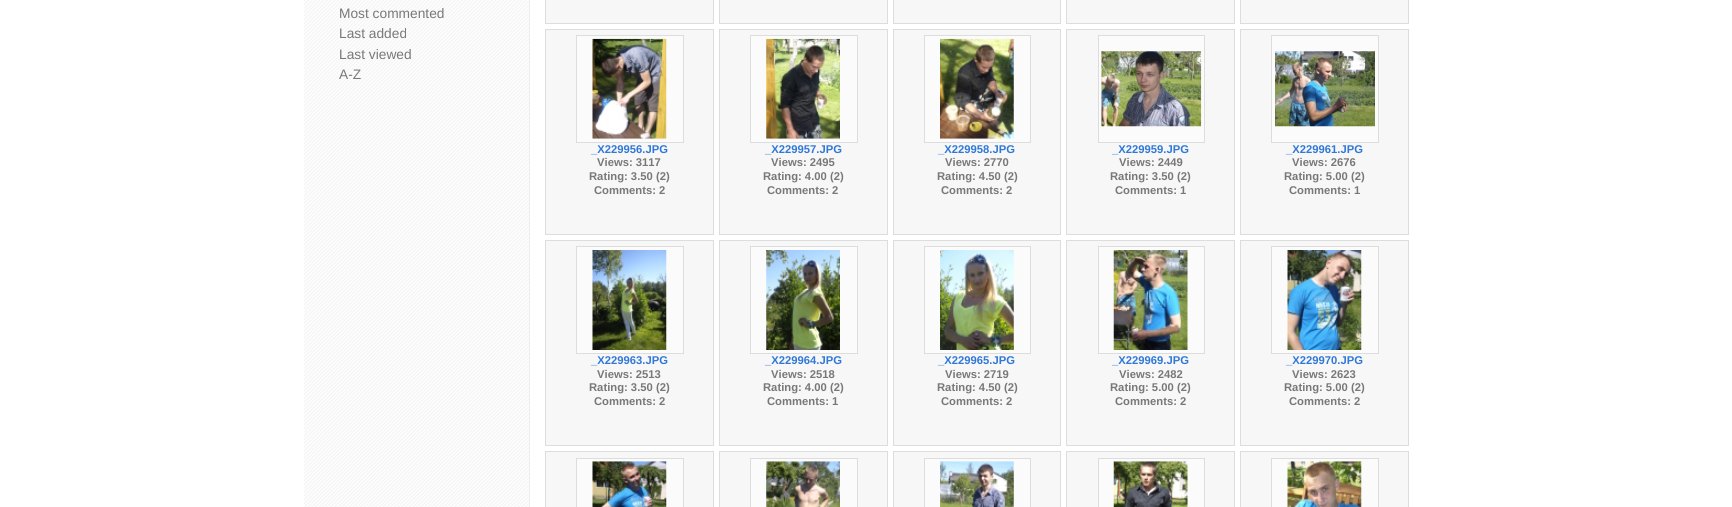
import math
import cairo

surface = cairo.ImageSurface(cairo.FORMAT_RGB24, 1732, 507)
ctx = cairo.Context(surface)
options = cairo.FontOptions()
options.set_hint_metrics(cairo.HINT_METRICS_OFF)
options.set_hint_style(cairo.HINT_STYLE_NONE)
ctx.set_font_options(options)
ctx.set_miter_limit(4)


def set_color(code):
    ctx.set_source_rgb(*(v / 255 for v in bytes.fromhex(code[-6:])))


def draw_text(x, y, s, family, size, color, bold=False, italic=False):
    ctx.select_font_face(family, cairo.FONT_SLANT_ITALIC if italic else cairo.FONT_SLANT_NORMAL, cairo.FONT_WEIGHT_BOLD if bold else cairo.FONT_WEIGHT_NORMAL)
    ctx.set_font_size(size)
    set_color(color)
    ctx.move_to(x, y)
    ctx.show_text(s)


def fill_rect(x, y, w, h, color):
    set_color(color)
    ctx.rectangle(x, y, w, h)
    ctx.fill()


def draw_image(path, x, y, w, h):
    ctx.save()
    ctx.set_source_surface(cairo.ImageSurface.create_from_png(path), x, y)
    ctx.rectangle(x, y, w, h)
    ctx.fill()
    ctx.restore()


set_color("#ffffff")
ctx.paint()
draw_image("assets/img1.png", 304, 0, 225, 507)
fill_rect(529, 0, 1, 507, "#eeeeee")
draw_text(339, 18, "Most commented", "Liberation Sans", 13.75, "#787878")
draw_text(339, 38, "Last added", "Liberation Sans", 13.75, "#787878")
draw_text(339, 59, "Last viewed", "Liberation Sans", 13.75, "#787878")
draw_text(339, 79, "A-Z", "Liberation Sans", 13.75, "#787878")
set_color("#f7f7f7")
ctx.rectangle(545.5, -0.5, 168, 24)
ctx.fill_preserve()
set_color("#dddddd")
ctx.set_line_width(1)
ctx.stroke()
set_color("#f7f7f7")
ctx.rectangle(719.5, -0.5, 168, 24)
ctx.fill_preserve()
set_color("#dddddd")
ctx.stroke()
set_color("#f7f7f7")
ctx.rectangle(893.5, -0.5, 167, 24)
ctx.fill_preserve()
set_color("#dddddd")
ctx.stroke()
set_color("#f7f7f7")
ctx.rectangle(1066.5, -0.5, 168, 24)
ctx.fill_preserve()
set_color("#dddddd")
ctx.stroke()
set_color("#f7f7f7")
ctx.rectangle(1240.5, -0.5, 168, 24)
ctx.fill_preserve()
set_color("#dddddd")
ctx.stroke()
set_color("#f7f7f7")
ctx.rectangle(545.5, 29.5, 168, 205)
ctx.fill_preserve()
set_color("#dddddd")
ctx.stroke()
set_color("#fbfbfb")
ctx.rectangle(576.5, 35.5, 107, 107)
ctx.fill_preserve()
set_color("#dddddd")
ctx.stroke()
draw_image("assets/img2.png", 592, 38, 75, 101)
draw_text(591, 153, "_X229956.JPG", "Liberation Sans", 11.25, "#3078d8", bold=True)
draw_text(597, 166, "Views: 3117", "Liberation Sans", 11.25, "#787878", bold=True)
draw_text(589, 180, "Rating: 3.50 (2)", "Liberation Sans", 11.25, "#787878", bold=True)
draw_text(594, 194, "Comments: 2", "Liberation Sans", 11.25, "#787878", bold=True)
set_color("#f7f7f7")
ctx.rectangle(719.5, 29.5, 168, 205)
ctx.fill_preserve()
set_color("#dddddd")
ctx.stroke()
set_color("#fbfbfb")
ctx.rectangle(750.5, 35.5, 107, 107)
ctx.fill_preserve()
set_color("#dddddd")
ctx.stroke()
draw_image("assets/img3.png", 766, 38, 74, 101)
draw_text(765, 153, "_X229957.JPG", "Liberation Sans", 11.25, "#3078d8", bold=True)
draw_text(771, 166, "Views: 2495", "Liberation Sans", 11.25, "#787878", bold=True)
draw_text(763, 180, "Rating: 4.00 (2)", "Liberation Sans", 11.25, "#787878", bold=True)
draw_text(767, 194, "Comments: 2", "Liberation Sans", 11.25, "#787878", bold=True)
set_color("#f7f7f7")
ctx.rectangle(893.5, 29.5, 167, 205)
ctx.fill_preserve()
set_color("#dddddd")
ctx.stroke()
set_color("#fbfbfb")
ctx.rectangle(924.5, 35.5, 106, 107)
ctx.fill_preserve()
set_color("#dddddd")
ctx.stroke()
draw_image("assets/img4.png", 940, 38, 74, 101)
draw_text(938, 153, "_X229958.JPG", "Liberation Sans", 11.25, "#3078d8", bold=True)
draw_text(945, 166, "Views: 2770", "Liberation Sans", 11.25, "#787878", bold=True)
draw_text(937, 180, "Rating: 4.50 (2)", "Liberation Sans", 11.25, "#787878", bold=True)
draw_text(941, 194, "Comments: 2", "Liberation Sans", 11.25, "#787878", bold=True)
set_color("#f7f7f7")
ctx.rectangle(1066.5, 29.5, 168, 205)
ctx.fill_preserve()
set_color("#dddddd")
ctx.stroke()
set_color("#fbfbfb")
ctx.rectangle(1098.5, 35.5, 106, 107)
ctx.fill_preserve()
set_color("#dddddd")
ctx.stroke()
draw_image("assets/img5.png", 1101, 51, 101, 76)
draw_text(1112, 153, "_X229959.JPG", "Liberation Sans", 11.25, "#3078d8", bold=True)
draw_text(1119, 166, "Views: 2449", "Liberation Sans", 11.25, "#787878", bold=True)
draw_text(1110, 180, "Rating: 3.50 (2)", "Liberation Sans", 11.25, "#787878", bold=True)
draw_text(1115, 194, "Comments: 1", "Liberation Sans", 11.25, "#787878", bold=True)
set_color("#f7f7f7")
ctx.rectangle(1240.5, 29.5, 168, 205)
ctx.fill_preserve()
set_color("#dddddd")
ctx.stroke()
set_color("#fbfbfb")
ctx.rectangle(1271.5, 35.5, 107, 107)
ctx.fill_preserve()
set_color("#dddddd")
ctx.stroke()
draw_image("assets/img6.png", 1275, 51, 100, 76)
draw_text(1286, 153, "_X229961.JPG", "Liberation Sans", 11.25, "#3078d8", bold=True)
draw_text(1292, 166, "Views: 2676", "Liberation Sans", 11.25, "#787878", bold=True)
draw_text(1284, 180, "Rating: 5.00 (2)", "Liberation Sans", 11.25, "#787878", bold=True)
draw_text(1289, 194, "Comments: 1", "Liberation Sans", 11.25, "#787878", bold=True)
set_color("#f7f7f7")
ctx.rectangle(545.5, 240.5, 168, 205)
ctx.fill_preserve()
set_color("#dddddd")
ctx.stroke()
set_color("#fbfbfb")
ctx.rectangle(576.5, 246.5, 107, 107)
ctx.fill_preserve()
set_color("#dddddd")
ctx.stroke()
draw_image("assets/img7.png", 592, 250, 75, 100)
draw_text(591, 364, "_X229963.JPG", "Liberation Sans", 11.25, "#3078d8", bold=True)
draw_text(597, 378, "Views: 2513", "Liberation Sans", 11.25, "#787878", bold=True)
draw_text(589, 391, "Rating: 3.50 (2)", "Liberation Sans", 11.25, "#787878", bold=True)
draw_text(594, 405, "Comments: 2", "Liberation Sans", 11.25, "#787878", bold=True)
set_color("#f7f7f7")
ctx.rectangle(719.5, 240.5, 168, 205)
ctx.fill_preserve()
set_color("#dddddd")
ctx.stroke()
set_color("#fbfbfb")
ctx.rectangle(750.5, 246.5, 107, 107)
ctx.fill_preserve()
set_color("#dddddd")
ctx.stroke()
draw_image("assets/img8.png", 766, 250, 74, 100)
draw_text(765, 364, "_X229964.JPG", "Liberation Sans", 11.25, "#3078d8", bold=True)
draw_text(771, 378, "Views: 2518", "Liberation Sans", 11.25, "#787878", bold=True)
draw_text(763, 391, "Rating: 4.00 (2)", "Liberation Sans", 11.25, "#787878", bold=True)
draw_text(767, 405, "Comments: 1", "Liberation Sans", 11.25, "#787878", bold=True)
set_color("#f7f7f7")
ctx.rectangle(893.5, 240.5, 167, 205)
ctx.fill_preserve()
set_color("#dddddd")
ctx.stroke()
set_color("#fbfbfb")
ctx.rectangle(924.5, 246.5, 106, 107)
ctx.fill_preserve()
set_color("#dddddd")
ctx.stroke()
draw_image("assets/img9.png", 940, 250, 74, 100)
draw_text(938, 364, "_X229965.JPG", "Liberation Sans", 11.25, "#3078d8", bold=True)
draw_text(945, 378, "Views: 2719", "Liberation Sans", 11.25, "#787878", bold=True)
draw_text(937, 391, "Rating: 4.50 (2)", "Liberation Sans", 11.25, "#787878", bold=True)
draw_text(941, 405, "Comments: 2", "Liberation Sans", 11.25, "#787878", bold=True)
set_color("#f7f7f7")
ctx.rectangle(1066.5, 240.5, 168, 205)
ctx.fill_preserve()
set_color("#dddddd")
ctx.stroke()
set_color("#fbfbfb")
ctx.rectangle(1098.5, 246.5, 106, 107)
ctx.fill_preserve()
set_color("#dddddd")
ctx.stroke()
draw_image("assets/img10.png", 1113, 250, 75, 100)
draw_text(1112, 364, "_X229969.JPG", "Liberation Sans", 11.25, "#3078d8", bold=True)
draw_text(1119, 378, "Views: 2482", "Liberation Sans", 11.25, "#787878", bold=True)
draw_text(1110, 391, "Rating: 5.00 (2)", "Liberation Sans", 11.25, "#787878", bold=True)
draw_text(1115, 405, "Comments: 2", "Liberation Sans", 11.25, "#787878", bold=True)
set_color("#f7f7f7")
ctx.rectangle(1240.5, 240.5, 168, 205)
ctx.fill_preserve()
set_color("#dddddd")
ctx.stroke()
set_color("#fbfbfb")
ctx.rectangle(1271.5, 246.5, 107, 107)
ctx.fill_preserve()
set_color("#dddddd")
ctx.stroke()
draw_image("assets/img11.png", 1287, 250, 75, 100)
draw_text(1286, 364, "_X229970.JPG", "Liberation Sans", 11.25, "#3078d8", bold=True)
draw_text(1292, 378, "Views: 2623", "Liberation Sans", 11.25, "#787878", bold=True)
draw_text(1284, 391, "Rating: 5.00 (2)", "Liberation Sans", 11.25, "#787878", bold=True)
draw_text(1289, 405, "Comments: 2", "Liberation Sans", 11.25, "#787878", bold=True)
set_color("#f7f7f7")
ctx.rectangle(545.5, 451.5, 168, 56)
ctx.fill_preserve()
set_color("#dddddd")
ctx.stroke()
set_color("#fbfbfb")
ctx.rectangle(576.5, 458.5, 107, 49)
ctx.fill_preserve()
set_color("#dddddd")
ctx.stroke()
draw_image("assets/img12.png", 592, 461, 75, 46)
set_color("#f7f7f7")
ctx.rectangle(719.5, 451.5, 168, 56)
ctx.fill_preserve()
set_color("#dddddd")
ctx.stroke()
set_color("#fbfbfb")
ctx.rectangle(750.5, 458.5, 107, 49)
ctx.fill_preserve()
set_color("#dddddd")
ctx.stroke()
draw_image("assets/img13.png", 766, 461, 74, 46)
set_color("#f7f7f7")
ctx.rectangle(893.5, 451.5, 167, 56)
ctx.fill_preserve()
set_color("#dddddd")
ctx.stroke()
set_color("#fbfbfb")
ctx.rectangle(924.5, 458.5, 106, 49)
ctx.fill_preserve()
set_color("#dddddd")
ctx.stroke()
draw_image("assets/img14.png", 940, 461, 74, 46)
set_color("#f7f7f7")
ctx.rectangle(1066.5, 451.5, 168, 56)
ctx.fill_preserve()
set_color("#dddddd")
ctx.stroke()
set_color("#fbfbfb")
ctx.rectangle(1098.5, 458.5, 106, 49)
ctx.fill_preserve()
set_color("#dddddd")
ctx.stroke()
draw_image("assets/img15.png", 1113, 461, 75, 46)
set_color("#f7f7f7")
ctx.rectangle(1240.5, 451.5, 168, 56)
ctx.fill_preserve()
set_color("#dddddd")
ctx.stroke()
set_color("#fbfbfb")
ctx.rectangle(1271.5, 458.5, 107, 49)
ctx.fill_preserve()
set_color("#dddddd")
ctx.stroke()
draw_image("assets/img16.png", 1287, 461, 75, 46)
surface.write_to_png("output.png")
